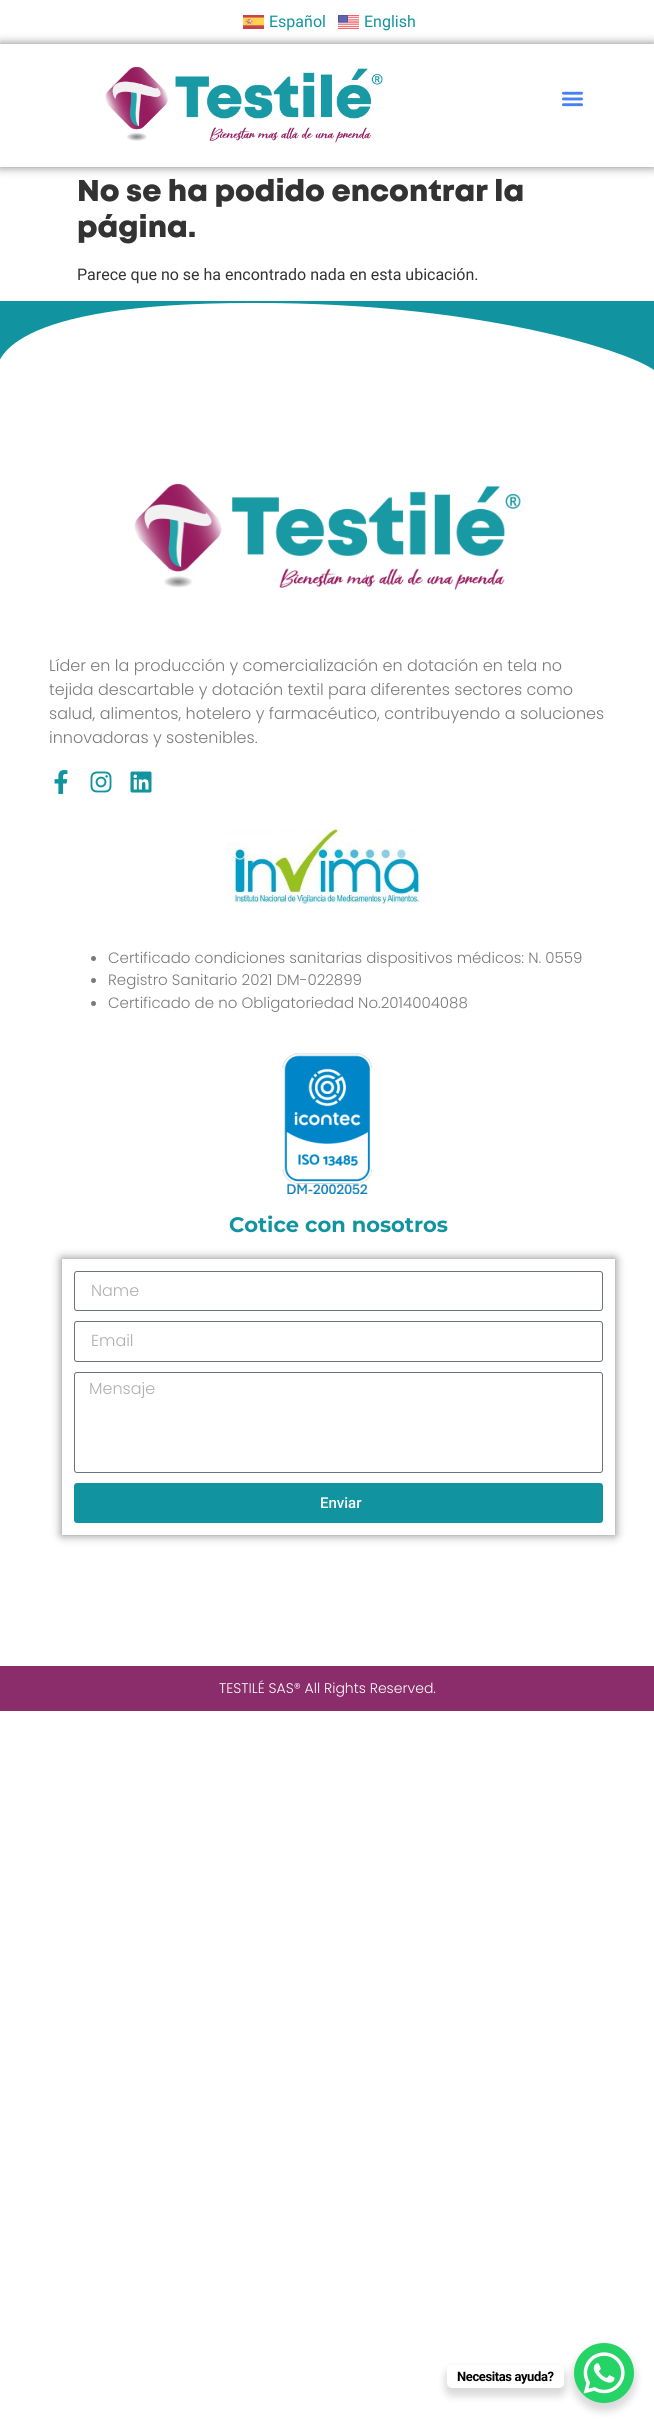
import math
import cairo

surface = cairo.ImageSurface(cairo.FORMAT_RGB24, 654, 2423)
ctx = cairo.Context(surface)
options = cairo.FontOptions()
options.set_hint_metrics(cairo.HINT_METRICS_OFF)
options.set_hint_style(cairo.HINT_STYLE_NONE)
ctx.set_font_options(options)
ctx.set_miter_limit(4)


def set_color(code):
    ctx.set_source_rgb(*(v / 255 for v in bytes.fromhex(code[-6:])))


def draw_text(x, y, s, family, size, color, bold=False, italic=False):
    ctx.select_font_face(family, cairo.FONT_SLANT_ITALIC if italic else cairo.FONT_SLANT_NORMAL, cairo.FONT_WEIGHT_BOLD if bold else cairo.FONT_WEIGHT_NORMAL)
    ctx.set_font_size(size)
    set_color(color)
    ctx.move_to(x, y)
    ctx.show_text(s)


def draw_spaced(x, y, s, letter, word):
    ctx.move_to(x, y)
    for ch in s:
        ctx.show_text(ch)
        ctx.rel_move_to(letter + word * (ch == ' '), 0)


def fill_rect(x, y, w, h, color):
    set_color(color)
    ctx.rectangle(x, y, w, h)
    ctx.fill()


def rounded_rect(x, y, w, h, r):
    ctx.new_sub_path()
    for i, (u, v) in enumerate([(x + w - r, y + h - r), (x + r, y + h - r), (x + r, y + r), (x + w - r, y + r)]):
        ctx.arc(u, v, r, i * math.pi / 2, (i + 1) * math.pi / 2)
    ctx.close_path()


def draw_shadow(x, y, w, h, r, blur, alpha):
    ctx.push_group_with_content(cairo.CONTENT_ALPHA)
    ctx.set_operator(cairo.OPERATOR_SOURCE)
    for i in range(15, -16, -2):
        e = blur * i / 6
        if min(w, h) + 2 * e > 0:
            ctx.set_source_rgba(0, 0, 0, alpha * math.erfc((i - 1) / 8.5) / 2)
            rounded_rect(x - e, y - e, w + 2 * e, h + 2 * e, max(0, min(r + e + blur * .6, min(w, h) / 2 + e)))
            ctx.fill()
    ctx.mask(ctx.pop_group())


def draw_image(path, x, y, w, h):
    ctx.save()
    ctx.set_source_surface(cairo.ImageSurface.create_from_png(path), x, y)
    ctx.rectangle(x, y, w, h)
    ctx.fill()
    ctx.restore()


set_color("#ffffff")
ctx.paint()
draw_image("assets/img1.png", 243, 15, 21, 14)
draw_text(269, 27, "Español", "Roboto", 16, "#1194a0")
draw_image("assets/img2.png", 338, 15, 21, 14)
draw_text(364, 27, "English", "Roboto", 16, "#1194a0")
ctx.save()
ctx.set_fill_rule(cairo.FILL_RULE_EVEN_ODD)
ctx.new_path()
ctx.move_to(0, 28)
ctx.line_to(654, 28)
ctx.line_to(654, 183)
ctx.line_to(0, 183)
ctx.close_path()
ctx.move_to(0, 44)
ctx.line_to(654, 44)
ctx.line_to(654, 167)
ctx.line_to(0, 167)
ctx.close_path()
ctx.clip()
set_color("#000000")
draw_shadow(0, 44, 654, 123, 0, 5, 0.5)
ctx.restore()
draw_image("assets/img3.png", 105, 67, 278, 76)
draw_image("assets/img4.png", 562, 91, 21, 16)
draw_text(77, 201, "No se ha podido encontrar la", "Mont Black", 30, "#333333")
draw_text(77, 237, "página.", "Mont Black", 30, "#333333")
draw_text(77, 280, "Parece que no se ha encontrado nada en esta ubicación.", "Roboto", 16, "#333333")
ctx.save()
ctx.rectangle(0, 301, 654, 75)
ctx.clip()
set_color("#1194a0")
ctx.new_path()
ctx.move_to(251, 303)
ctx.curve_to(499, 302, 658, 361, 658, 375)
ctx.line_to(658, 300)
ctx.line_to(-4, 300)
ctx.line_to(-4, 375)
ctx.curve_to(-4, 361, 3, 303, 251, 303)
ctx.close_path()
ctx.fill()
ctx.restore()
draw_image("assets/img5.png", 134, 484, 387, 106)
draw_text(49, 671, "Líder en la producción y comercialización en dotación en tela no", "Poppins Light", 16, "#7a7a7a")
draw_text(49, 695, "tejida descartable y dotación textil para diferentes sectores como", "Poppins Light", 16, "#7a7a7a")
draw_text(49, 719, "salud, alimentos, hotelero y farmacéutico, contribuyendo a soluciones", "Poppins Light", 16, "#7a7a7a")
draw_text(49, 743, "innovadoras y sostenibles.", "Poppins Light", 16, "#7a7a7a")
draw_image("assets/img6.png", 54, 770, 14, 24)
draw_image("assets/img7.png", 90, 771, 22, 22)
draw_image("assets/img8.png", 130, 771, 22, 22)
draw_image("assets/img9.png", 225, 826, 195, 78)
ctx.arc(93.5, 958.5, 2.5, 0, 2 * math.pi)
ctx.fill()
draw_text(108, 963, "Certificado condiciones sanitarias dispositivos médicos: N. 0559", "Poppins Light", 15, "#7a7a7a")
ctx.new_path()
ctx.arc(93.5, 980.5, 2.5, 0, 2 * math.pi)
ctx.fill()
draw_text(108, 985, "Registro Sanitario 2021 DM-022899", "Poppins Light", 15, "#7a7a7a")
ctx.new_path()
ctx.arc(93.5, 1003.5, 2.5, 0, 2 * math.pi)
ctx.fill()
draw_text(108, 1008, "Certificado de no Obligatoriedad No.2014004088", "Poppins Light", 15, "#7a7a7a")
draw_image("assets/img10.png", 282, 1053, 90, 141)
draw_text(229, 1232, "Cotice con nosotros", "Montserrat", 21, "#1194a0", bold=True)
ctx.save()
ctx.set_fill_rule(cairo.FILL_RULE_EVEN_ODD)
ctx.new_path()
ctx.move_to(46, 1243)
ctx.line_to(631, 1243)
ctx.line_to(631, 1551)
ctx.line_to(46, 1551)
ctx.close_path()
ctx.move_to(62, 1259)
ctx.line_to(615, 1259)
ctx.line_to(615, 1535)
ctx.line_to(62, 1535)
ctx.close_path()
ctx.clip()
set_color("#000000")
draw_shadow(62, 1259, 553, 276, 0, 5, 0.5)
ctx.restore()
rounded_rect(74.5, 1271.5, 528, 39, 2.5)
set_color("#69727d")
ctx.set_line_width(1)
ctx.stroke()
draw_text(91, 1296, "Name", "Poppins Light", 16, "#afafaf")
rounded_rect(74.5, 1321.5, 528, 40, 2.5)
set_color("#69727d")
ctx.stroke()
draw_text(91, 1346, "Email", "Poppins Light", 16, "#afafaf")
rounded_rect(74.5, 1372.5, 528, 100, 2.5)
set_color("#69727d")
ctx.stroke()
draw_text(89, 1394, "Mensaje", "Poppins Light", 16, "#afafaf")
set_color("#1194a0")
rounded_rect(74, 1483, 529, 40, 3)
ctx.fill()
draw_text(320, 1508, "Enviar", "Roboto Medium", 15, "#ffffff")
fill_rect(0, 1666, 654, 45, "#8a2d6a")
draw_text(219, 1693, "TESTILÉ SAS® All Rights Reserved.", "Poppins Light", 14, "#ffffff")
set_color("#000000")
draw_shadow(572, 2347, 64, 64, 32, 4, 0.15)
set_color("#25d366")
ctx.arc(604, 2373, 30, 0, 2 * math.pi)
ctx.fill()
set_color("#000000")
draw_shadow(445, 2369, 121, 27, 7, 4, 0.15)
set_color("#ffffff")
rounded_rect(447, 2365, 117, 23, 5)
ctx.fill()
ctx.select_font_face("Roboto", cairo.FONT_SLANT_NORMAL, cairo.FONT_WEIGHT_BOLD)
ctx.set_font_size(13)
set_color("#000000")
draw_spaced(457, 2381, "Necesitas ayuda?", -0.4, 0)
draw_image("assets/img11.png", 583, 2352, 42, 42)
surface.write_to_png("output.png")
